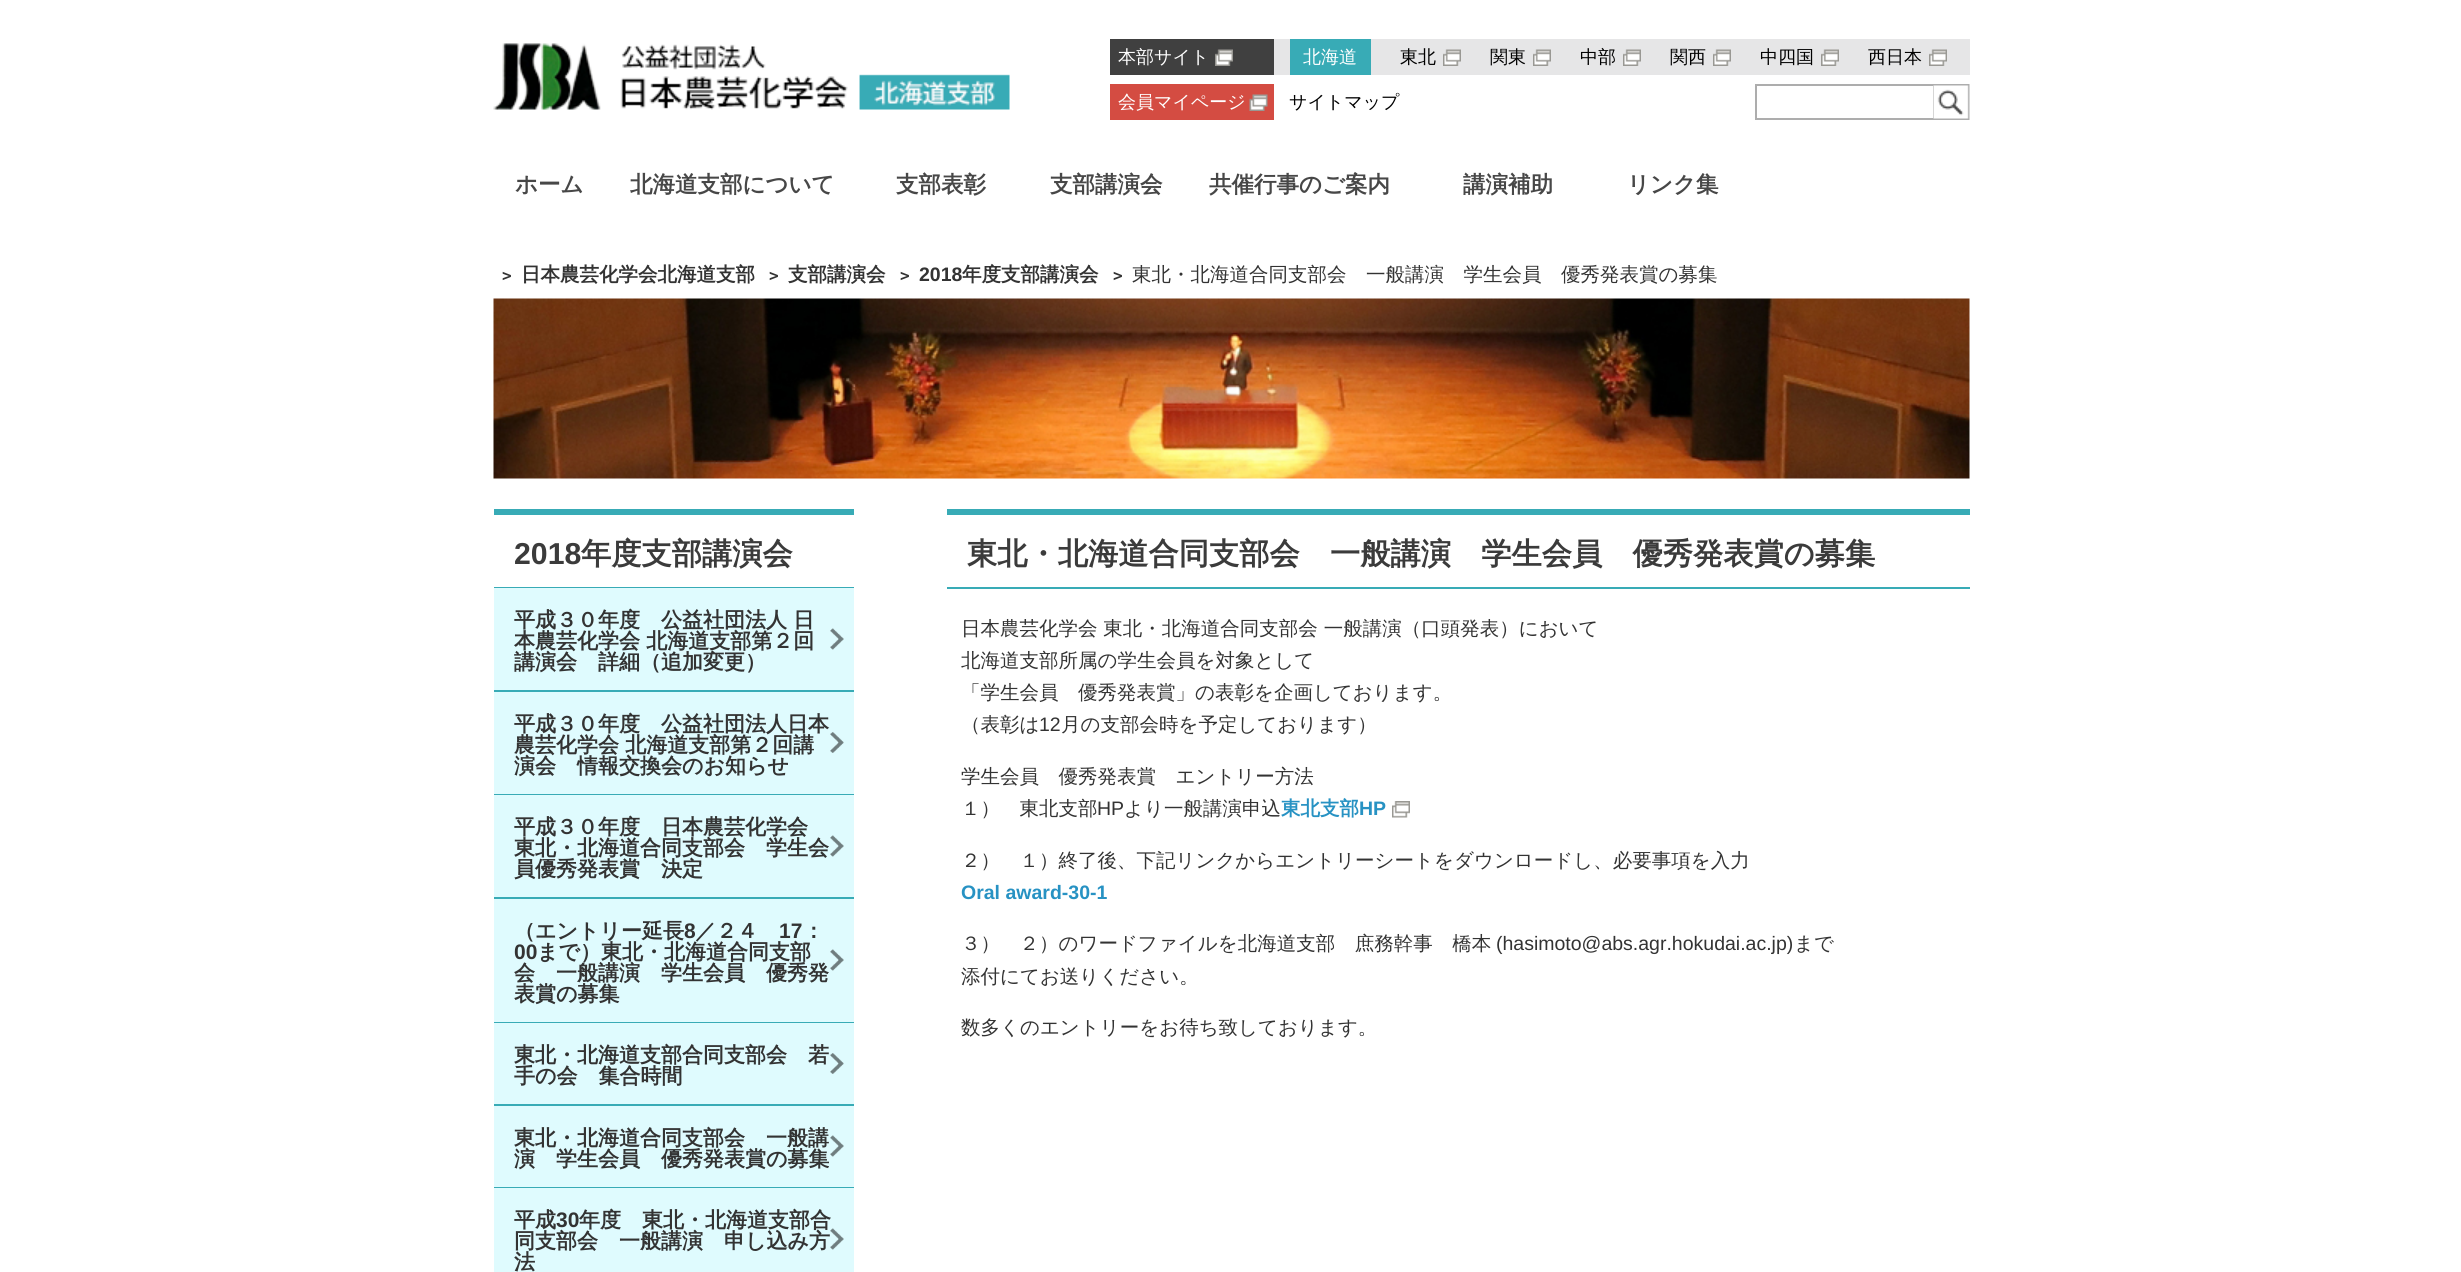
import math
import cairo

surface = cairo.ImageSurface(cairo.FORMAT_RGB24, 2461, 1272)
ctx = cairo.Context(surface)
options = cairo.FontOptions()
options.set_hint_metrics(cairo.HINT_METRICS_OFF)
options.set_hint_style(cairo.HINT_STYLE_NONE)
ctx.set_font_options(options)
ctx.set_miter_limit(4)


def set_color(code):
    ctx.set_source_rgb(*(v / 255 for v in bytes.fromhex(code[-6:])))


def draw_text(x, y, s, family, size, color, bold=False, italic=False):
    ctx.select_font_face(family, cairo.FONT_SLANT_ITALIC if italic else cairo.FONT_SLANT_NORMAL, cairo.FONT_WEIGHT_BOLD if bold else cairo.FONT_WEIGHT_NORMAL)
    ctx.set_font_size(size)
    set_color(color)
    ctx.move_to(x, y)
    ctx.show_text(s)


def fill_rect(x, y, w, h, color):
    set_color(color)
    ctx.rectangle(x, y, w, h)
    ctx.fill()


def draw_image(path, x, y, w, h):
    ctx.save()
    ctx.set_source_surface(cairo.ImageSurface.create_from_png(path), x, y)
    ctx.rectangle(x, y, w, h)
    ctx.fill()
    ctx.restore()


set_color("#ffffff")
ctx.paint()
draw_image("assets/img1.png", 493, 43, 517, 67)
fill_rect(1274, 39, 696, 36, "#e6e6e7")
fill_rect(1110, 39, 164, 36, "#404040")
draw_image("assets/img2.png", 1215, 49, 18, 17)
draw_text(1118, 63, "本部サイト", "WenQuanYi Zen Hei Medium", 18, "#ffffff")
fill_rect(1290, 39, 81, 36, "#38abb6")
draw_text(1303, 63, "北海道", "WenQuanYi Zen Hei Medium", 18, "#ffffff")
draw_image("assets/img3.png", 1443, 49, 18, 17)
draw_text(1400, 63, "東北", "WenQuanYi Zen Hei Medium", 18, "#000000")
draw_image("assets/img3.png", 1533, 49, 18, 17)
draw_text(1490, 63, "関東", "WenQuanYi Zen Hei Medium", 18, "#000000")
draw_image("assets/img3.png", 1623, 49, 18, 17)
draw_text(1580, 63, "中部", "WenQuanYi Zen Hei Medium", 18, "#000000")
draw_image("assets/img3.png", 1713, 49, 18, 17)
draw_text(1670, 63, "関西", "WenQuanYi Zen Hei Medium", 18, "#000000")
draw_image("assets/img4.png", 1821, 49, 18, 17)
draw_text(1760, 63, "中四国", "WenQuanYi Zen Hei Medium", 18, "#000000")
draw_image("assets/img4.png", 1929, 49, 18, 17)
draw_text(1868, 63, "西日本", "WenQuanYi Zen Hei Medium", 18, "#000000")
fill_rect(1110, 84, 164, 36, "#d44c42")
draw_image("assets/img5.png", 1249, 94, 19, 17)
draw_text(1118, 108, "会員マイページ", "WenQuanYi Zen Hei Medium", 18, "#ffffff")
draw_text(1289, 108, "サイトマップ", "WenQuanYi Zen Hei Medium", 18, "#000000")
ctx.rectangle(1756, 85, 178, 34)
set_color("#adadad")
ctx.stroke()
draw_image("assets/img6.png", 1933, 84, 37, 36)
draw_text(515, 192, "ホーム", "WenQuanYi Zen Hei", 22.5, "#474747", bold=True)
draw_text(630, 192, "北海道支部について", "WenQuanYi Zen Hei", 22.5, "#474747", bold=True)
draw_text(896, 192, "支部表彰", "WenQuanYi Zen Hei", 22.5, "#474747", bold=True)
draw_text(1050, 192, "支部講演会", "WenQuanYi Zen Hei", 22.5, "#474747", bold=True)
draw_text(1209, 192, "共催行事のご案内", "WenQuanYi Zen Hei", 22.5, "#474747", bold=True)
draw_text(1463, 192, "講演補助", "WenQuanYi Zen Hei", 22.5, "#474747", bold=True)
draw_text(1627, 192, "リンク集", "WenQuanYi Zen Hei", 22.5, "#474747", bold=True)
draw_text(502, 281, ">", "DejaVu Sans Mono", 16, "#333333", bold=True)
draw_text(521, 281, "日本農芸化学会北海道支部", "WenQuanYi Zen Hei", 19.5, "#333333", bold=True)
draw_text(769, 281, ">", "DejaVu Sans Mono", 16, "#333333", bold=True)
draw_text(788, 281, "支部講演会", "WenQuanYi Zen Hei", 19.5, "#333333", bold=True)
draw_text(900, 281, ">", "DejaVu Sans Mono", 16, "#333333", bold=True)
draw_text(919, 281, "2018", "Liberation Sans", 19.5, "#333333", bold=True)
draw_text(962, 281, "年度支部講演会", "WenQuanYi Zen Hei", 19.5, "#333333", bold=True)
draw_text(1113, 281, ">", "DejaVu Sans Mono", 16, "#333333", bold=True)
draw_text(1132, 281, "東北・北海道合同支部会　一般講演　学生会員　優秀発表賞の募集", "WenQuanYi Zen Hei Medium", 19.5, "#333333")
draw_image("assets/img7.png", 493, 298, 1477, 181)
fill_rect(494, 509, 360, 6, "#38abb6")
fill_rect(494, 587, 360, 1, "#38abb6")
draw_text(514, 564, "2018", "Liberation Sans", 30.25, "#3b3b3b", bold=True)
draw_text(581, 564, "年度支部講演会", "WenQuanYi Zen Hei", 30.25, "#3b3b3b", bold=True)
fill_rect(494, 588, 360, 102, "#dffbfe")
draw_image("assets/img8.png", 830, 628, 14, 22)
fill_rect(494, 690, 360, 2, "#38abb6")
draw_text(514, 627, "平成３０年度　公益社団法人 日", "WenQuanYi Zen Hei", 21, "#333333", bold=True)
draw_text(514, 648, "本農芸化学会 北海道支部第２回", "WenQuanYi Zen Hei", 21, "#333333", bold=True)
draw_text(514, 669, "講演会　詳細（追加変更）", "WenQuanYi Zen Hei", 21, "#333333", bold=True)
fill_rect(494, 692, 360, 102, "#dffbfe")
draw_image("assets/img9.png", 830, 732, 14, 21)
fill_rect(494, 794, 360, 1, "#38abb6")
draw_text(514, 731, "平成３０年度　公益社団法人日本", "WenQuanYi Zen Hei", 21, "#333333", bold=True)
draw_text(514, 752, "農芸化学会 北海道支部第２回講", "WenQuanYi Zen Hei", 21, "#333333", bold=True)
draw_text(514, 773, "演会　情報交換会のお知らせ", "WenQuanYi Zen Hei", 21, "#333333", bold=True)
fill_rect(494, 795, 360, 102, "#dffbfe")
draw_image("assets/img8.png", 830, 835, 14, 22)
fill_rect(494, 897, 360, 2, "#38abb6")
draw_text(514, 834, "平成３０年度　日本農芸化学会", "WenQuanYi Zen Hei", 21, "#333333", bold=True)
draw_text(514, 855, "東北・北海道合同支部会　学生会", "WenQuanYi Zen Hei", 21, "#333333", bold=True)
draw_text(514, 876, "員優秀発表賞　決定", "WenQuanYi Zen Hei", 21, "#333333", bold=True)
fill_rect(494, 899, 360, 123, "#dffbfe")
draw_image("assets/img8.png", 830, 949, 14, 22)
fill_rect(494, 1022, 360, 1, "#38abb6")
draw_text(514, 938, "（エントリー延長", "WenQuanYi Zen Hei", 21, "#333333", bold=True)
draw_text(684, 938, "8", "Liberation Sans", 21, "#333333", bold=True)
draw_text(695, 938, "／２４", "WenQuanYi Zen Hei", 21, "#333333", bold=True)
draw_text(779, 938, "17", "Liberation Sans", 21, "#333333", bold=True)
draw_text(803, 938, "：", "WenQuanYi Zen Hei", 21, "#333333", bold=True)
draw_text(514, 959, "00", "Liberation Sans", 21, "#333333", bold=True)
draw_text(537, 959, "まで）東北・北海道合同支部", "WenQuanYi Zen Hei", 21, "#333333", bold=True)
draw_text(514, 980, "会　一般講演　学生会員　優秀発", "WenQuanYi Zen Hei", 21, "#333333", bold=True)
draw_text(514, 1001, "表賞の募集", "WenQuanYi Zen Hei", 21, "#333333", bold=True)
fill_rect(494, 1023, 360, 81, "#dffbfe")
draw_image("assets/img9.png", 830, 1053, 14, 21)
fill_rect(494, 1104, 360, 2, "#38abb6")
draw_text(514, 1062, "東北・北海道支部合同支部会　若", "WenQuanYi Zen Hei", 21, "#333333", bold=True)
draw_text(514, 1083, "手の会　集合時間", "WenQuanYi Zen Hei", 21, "#333333", bold=True)
fill_rect(494, 1106, 360, 81, "#dffbfe")
draw_image("assets/img8.png", 830, 1135, 14, 22)
fill_rect(494, 1187, 360, 1, "#38abb6")
draw_text(514, 1145, "東北・北海道合同支部会　一般講", "WenQuanYi Zen Hei", 21, "#333333", bold=True)
draw_text(514, 1166, "演　学生会員　優秀発表賞の募集", "WenQuanYi Zen Hei", 21, "#333333", bold=True)
fill_rect(494, 1188, 360, 84, "#dffbfe")
draw_image("assets/img8.png", 830, 1228, 14, 22)
draw_text(514, 1227, "平成", "WenQuanYi Zen Hei", 21, "#333333", bold=True)
draw_text(556, 1227, "30", "Liberation Sans", 21, "#333333", bold=True)
draw_text(579, 1227, "年度　東北・北海道支部合", "WenQuanYi Zen Hei", 21, "#333333", bold=True)
draw_text(514, 1248, "同支部会　一般講演　申し込み方", "WenQuanYi Zen Hei", 21, "#333333", bold=True)
draw_text(514, 1269, "法", "WenQuanYi Zen Hei", 21, "#333333", bold=True)
fill_rect(947, 509, 1023, 6, "#38abb6")
fill_rect(947, 587, 1023, 2, "#38abb6")
draw_text(967, 564, "東北・北海道合同支部会　一般講演　学生会員　優秀発表賞の募集", "WenQuanYi Zen Hei", 30.25, "#3b3b3b", bold=True)
draw_text(961, 635, "日本農芸化学会 東北・北海道合同支部会 一般講演（口頭発表）において", "WenQuanYi Zen Hei Medium", 19.5, "#333333")
draw_text(961, 667, "北海道支部所属の学生会員を対象として", "WenQuanYi Zen Hei Medium", 19.5, "#333333")
draw_text(961, 699, "「学生会員　優秀発表賞」の表彰を企画しております。", "WenQuanYi Zen Hei Medium", 19.5, "#333333")
draw_text(961, 731, "（表彰は", "WenQuanYi Zen Hei Medium", 19.5, "#333333")
draw_text(1039, 731, "12", "Liberation Sans", 19.5, "#333333")
draw_text(1061, 731, "月の支部会時を予定しております）", "WenQuanYi Zen Hei Medium", 19.5, "#333333")
draw_text(961, 783, "学生会員　優秀発表賞　エントリー方法", "WenQuanYi Zen Hei Medium", 19.5, "#333333")
draw_text(961, 815, "１）　東北支部", "WenQuanYi Zen Hei Medium", 19.5, "#333333")
draw_text(1097, 815, "HP", "Liberation Sans", 19.5, "#333333")
draw_text(1124, 815, "より一般講演申込", "WenQuanYi Zen Hei Medium", 19.5, "#333333")
draw_image("assets/img10.png", 1392, 801, 18, 17)
draw_text(1281, 815, "東北支部", "WenQuanYi Zen Hei", 19.5, "#2792c3", bold=True)
draw_text(1359, 815, "HP", "Liberation Sans", 19.5, "#2792c3", bold=True)
draw_text(961, 867, "２）　１）終了後、下記リンクからエントリーシートをダウンロードし、必要事項を入力", "WenQuanYi Zen Hei Medium", 19.5, "#333333")
draw_text(961, 899, "Oral award-30-1", "Liberation Sans", 19.5, "#2792c3", bold=True)
draw_text(961, 950, "３）　２）のワードファイルを北海道支部　庶務幹事　橋本", "WenQuanYi Zen Hei Medium", 19.5, "#333333")
draw_text(1496, 950, "(hasimoto@abs.agr.hokudai.ac.jp)", "Liberation Sans", 19.5, "#333333")
draw_text(1794, 950, "まで", "WenQuanYi Zen Hei Medium", 19.5, "#333333")
draw_text(961, 983, "添付にてお送りください。", "WenQuanYi Zen Hei Medium", 19.5, "#333333")
draw_text(961, 1034, "数多くのエントリーをお待ち致しております。", "WenQuanYi Zen Hei Medium", 19.5, "#333333")
surface.write_to_png("output.png")
